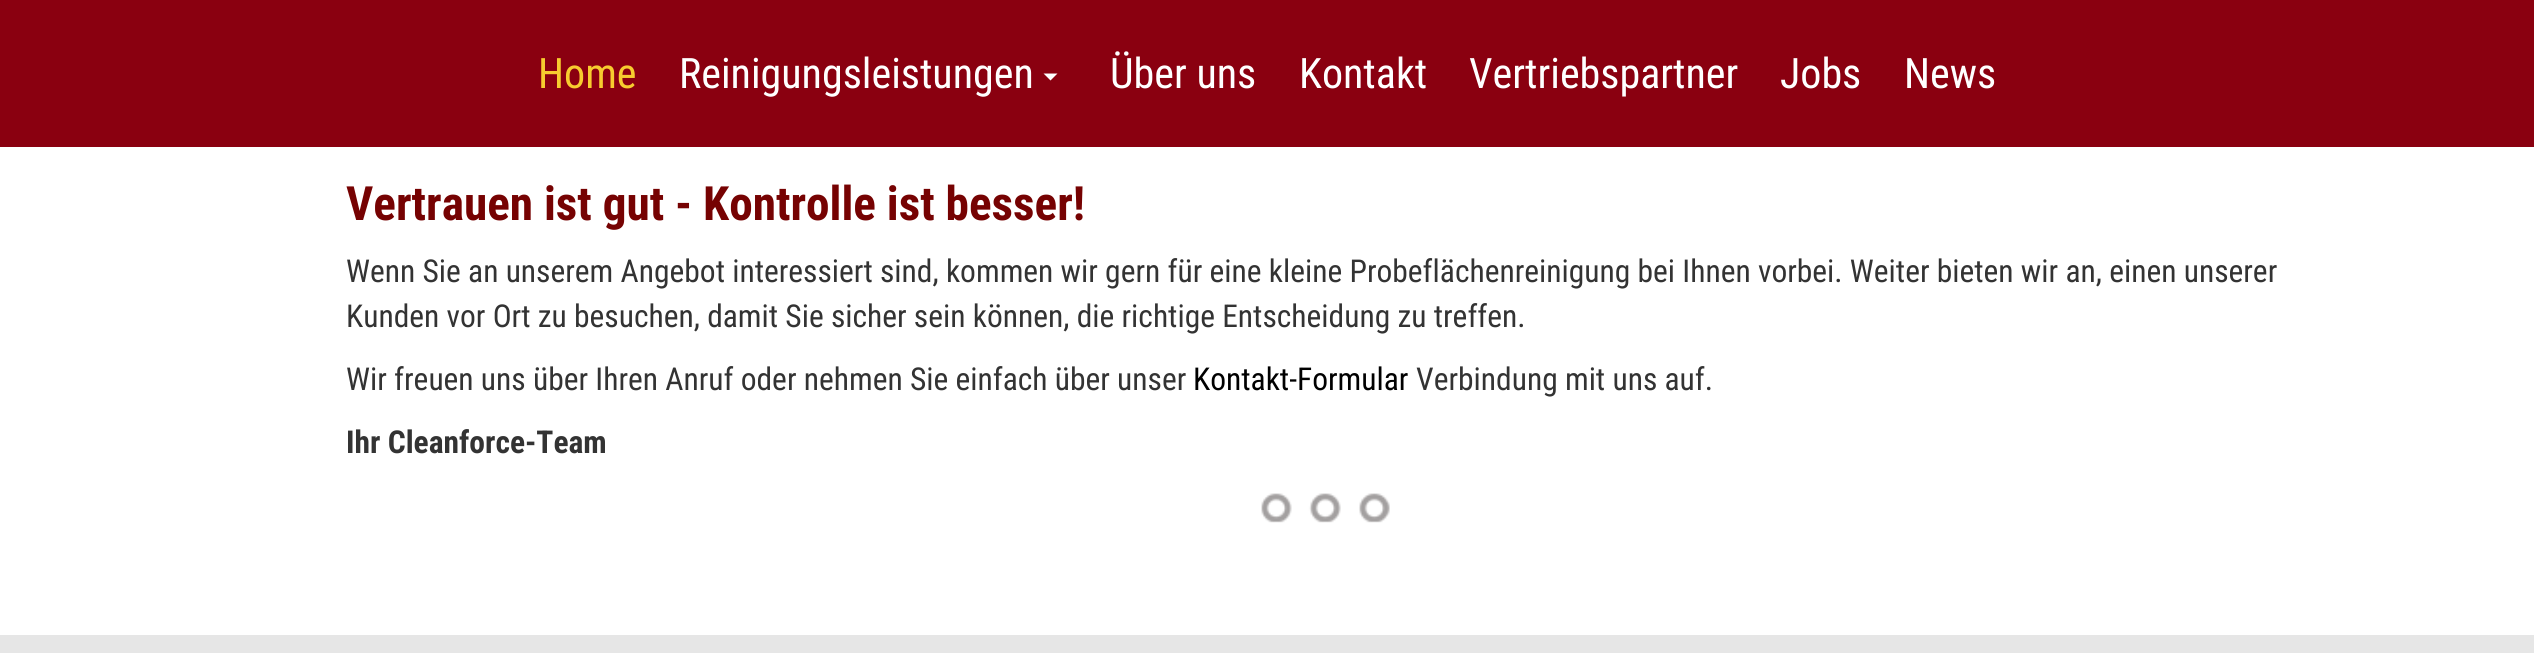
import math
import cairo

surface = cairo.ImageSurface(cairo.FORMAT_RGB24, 2534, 653)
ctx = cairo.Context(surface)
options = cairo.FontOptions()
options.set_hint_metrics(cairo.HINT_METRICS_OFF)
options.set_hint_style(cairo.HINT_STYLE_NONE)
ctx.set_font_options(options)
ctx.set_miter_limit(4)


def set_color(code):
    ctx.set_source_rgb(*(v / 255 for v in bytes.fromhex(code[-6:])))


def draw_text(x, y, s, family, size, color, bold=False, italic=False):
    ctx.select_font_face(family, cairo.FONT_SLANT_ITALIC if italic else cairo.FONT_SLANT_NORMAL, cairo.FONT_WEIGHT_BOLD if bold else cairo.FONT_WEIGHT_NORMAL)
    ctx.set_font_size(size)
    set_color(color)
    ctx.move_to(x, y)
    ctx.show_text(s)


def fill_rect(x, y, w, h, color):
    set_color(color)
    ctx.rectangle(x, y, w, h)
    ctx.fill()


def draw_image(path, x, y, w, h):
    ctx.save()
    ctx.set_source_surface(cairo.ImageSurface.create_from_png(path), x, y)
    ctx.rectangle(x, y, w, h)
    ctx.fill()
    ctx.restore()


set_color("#ffffff")
ctx.paint()
fill_rect(0, 0, 2534, 147, "#8a0010")
draw_text(538, 88, "Home", "Roboto Condensed", 42, "#f7cc2f")
draw_text(679, 88, "Reinigungsleistungen", "Roboto Condensed", 42, "#ffffff")
ctx.new_path()
ctx.move_to(1043.5, 73.5)
ctx.line_to(1057.5, 73.5)
ctx.line_to(1050.5, 80.5)
ctx.close_path()
ctx.fill()
draw_text(1110, 88, "Über uns", "Roboto Condensed", 42, "#ffffff")
draw_text(1299, 88, "Kontakt", "Roboto Condensed", 42, "#ffffff")
draw_text(1469, 88, "Vertriebspartner", "Roboto Condensed", 42, "#ffffff")
draw_text(1780, 88, "Jobs", "Roboto Condensed", 42, "#ffffff")
draw_text(1904, 88, "News", "Roboto Condensed", 42, "#ffffff")
draw_text(346, 220, "Vertrauen ist gut - Kontrolle ist besser!", "Roboto Condensed", 47.25, "#760202", bold=True)
draw_text(346, 282, "Wenn Sie an unserem Angebot interessiert sind, kommen wir gern für eine kleine Probeflächenreinigung bei Ihnen vorbei. Weiter bieten wir an, einen unserer", "Roboto Condensed", 31.5, "#333333")
draw_text(346, 327, "Kunden vor Ort zu besuchen, damit Sie sicher sein können, die richtige Entscheidung zu treffen.", "Roboto Condensed", 31.5, "#333333")
draw_text(346, 390, "Wir freuen uns über Ihren Anruf oder nehmen Sie einfach über unser", "Roboto Condensed", 31.5, "#333333")
draw_text(1193, 390, "Kontakt-Formular", "Roboto Condensed", 31.5, "#000000")
draw_text(1416, 390, "Verbindung mit uns auf.", "Roboto Condensed", 31.5, "#333333")
draw_text(346, 453, "Ihr Cleanforce-Team", "Roboto Condensed", 31.5, "#333333", bold=True)
draw_image("assets/img1.png", 1261, 493, 129, 30)
fill_rect(0, 635, 2534, 18, "#e6e6e6")
surface.write_to_png("output.png")
